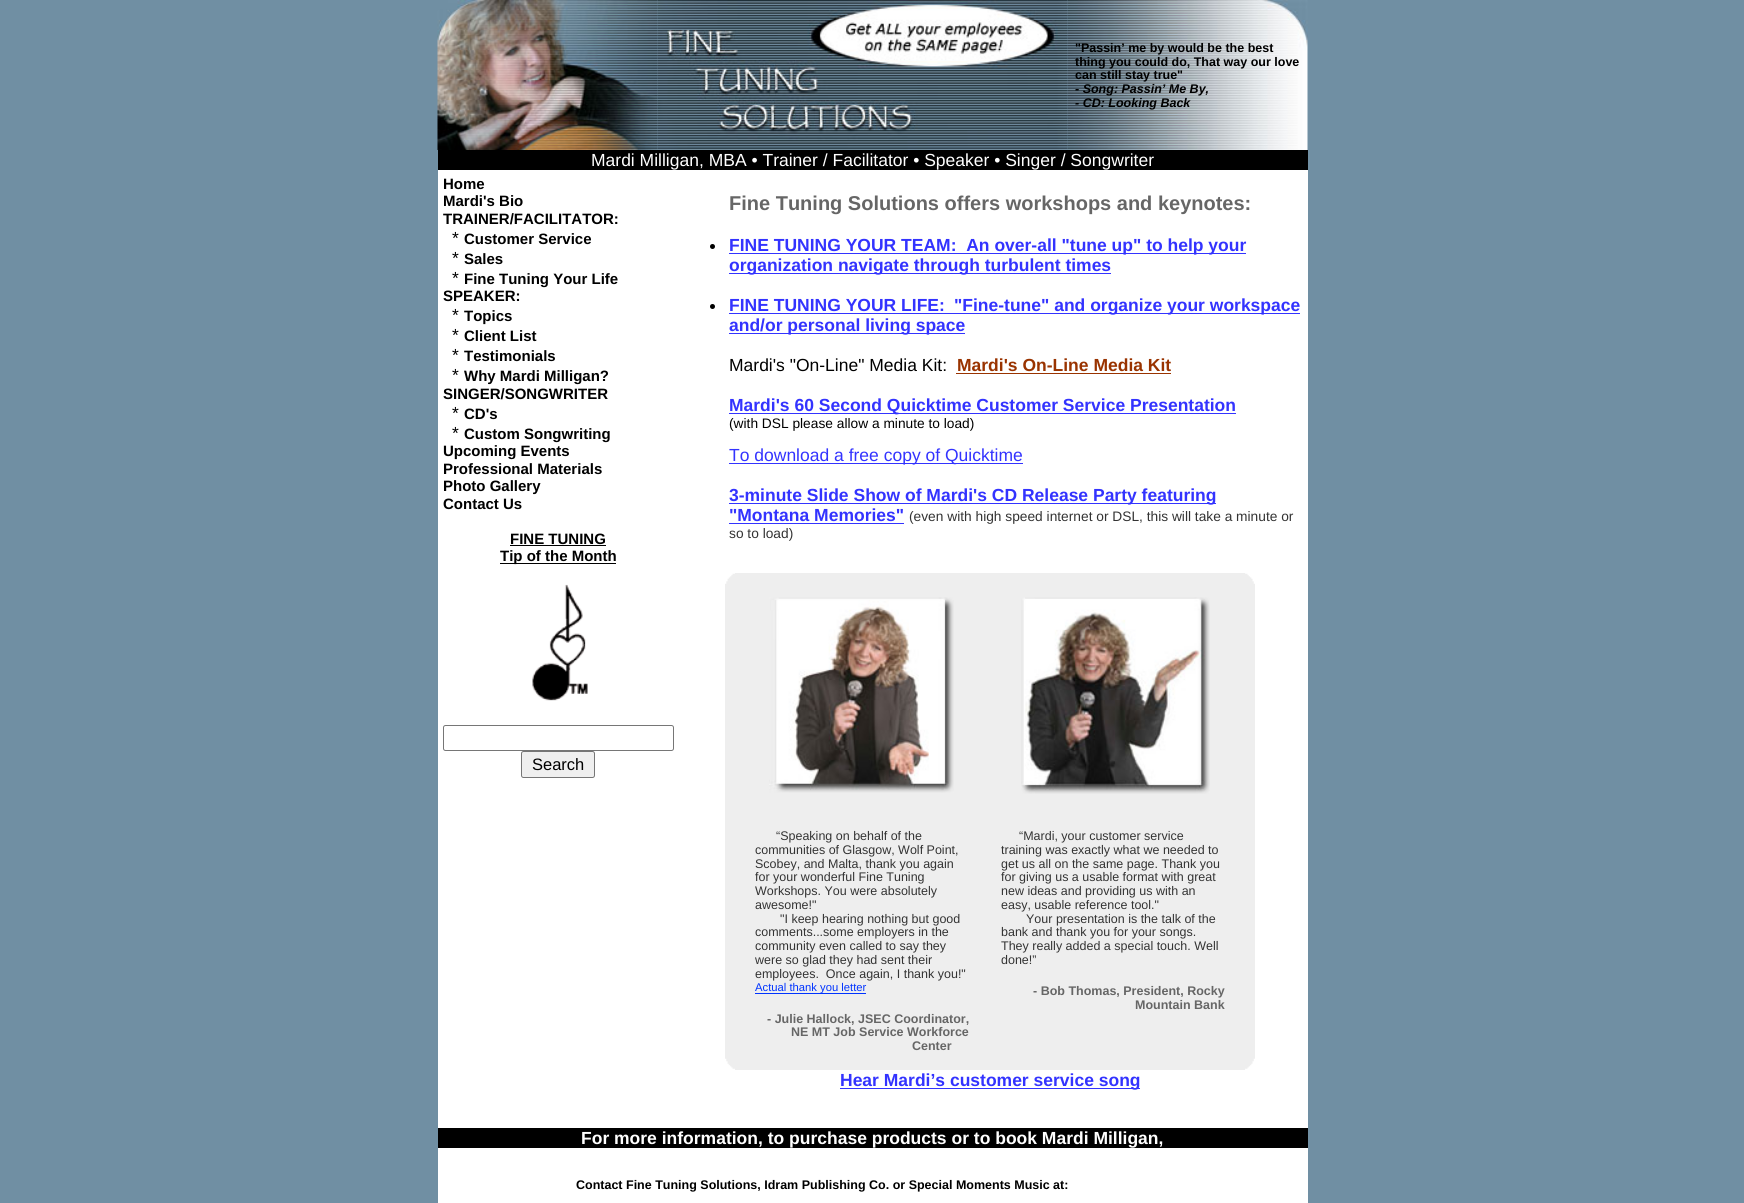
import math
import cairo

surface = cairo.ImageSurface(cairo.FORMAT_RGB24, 1744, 1203)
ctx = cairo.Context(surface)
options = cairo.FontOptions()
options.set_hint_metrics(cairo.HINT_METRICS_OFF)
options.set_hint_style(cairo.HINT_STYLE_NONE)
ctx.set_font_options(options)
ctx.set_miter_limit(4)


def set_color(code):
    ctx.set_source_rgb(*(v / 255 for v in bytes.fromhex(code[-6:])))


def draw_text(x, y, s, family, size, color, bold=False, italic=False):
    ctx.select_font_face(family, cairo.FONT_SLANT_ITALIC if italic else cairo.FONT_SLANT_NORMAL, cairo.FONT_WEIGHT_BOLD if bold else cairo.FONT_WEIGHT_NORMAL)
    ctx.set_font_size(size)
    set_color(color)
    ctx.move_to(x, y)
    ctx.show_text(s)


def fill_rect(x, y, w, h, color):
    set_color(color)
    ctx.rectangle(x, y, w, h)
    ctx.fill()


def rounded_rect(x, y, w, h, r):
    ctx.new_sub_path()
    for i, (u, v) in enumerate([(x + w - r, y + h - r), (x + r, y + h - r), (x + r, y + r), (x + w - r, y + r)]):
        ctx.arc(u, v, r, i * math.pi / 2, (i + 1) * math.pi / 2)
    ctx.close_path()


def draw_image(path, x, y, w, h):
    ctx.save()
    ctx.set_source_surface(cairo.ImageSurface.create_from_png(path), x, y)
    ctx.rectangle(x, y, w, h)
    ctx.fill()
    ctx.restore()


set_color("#708fa3")
ctx.paint()
draw_image("assets/img1.png", 437, 0, 221, 150)
draw_image("assets/img3.png", 1067, 0, 241, 150)
draw_image("assets/img2.png", 657, 0, 411, 150)
draw_text(1075, 52, "\"Passin’ me by would be the best", "Liberation Sans", 12.5, "#000000", bold=True)
draw_text(1075, 66, "thing you could do, That way our love", "Liberation Sans", 12.5, "#000000", bold=True)
draw_text(1075, 79, "can still stay true\"", "Liberation Sans", 12.5, "#000000", bold=True)
draw_text(1075, 93, "- Song: Passin’ Me By,", "Liberation Sans", 12.5, "#000000", bold=True, italic=True)
draw_text(1075, 107, "- CD: Looking Back", "Liberation Sans", 12.5, "#000000", bold=True, italic=True)
fill_rect(438, 150, 870, 20, "#000000")
draw_text(591, 166, "Mardi Milligan, MBA • Trainer / Facilitator • Speaker • Singer / Songwriter", "Liberation Sans", 17.5, "#ffffff")
fill_rect(438, 170, 870, 958, "#ffffff")
draw_text(443, 189, "Home", "Liberation Sans", 15, "#000000", bold=True)
draw_text(443, 206, "Mardi's Bio", "Liberation Sans", 15, "#000000", bold=True)
draw_text(443, 224, "TRAINER/FACILITATOR:", "Liberation Sans", 15, "#000000", bold=True)
draw_text(452, 244, "*", "Liberation Sans", 17.5, "#000000")
draw_text(464, 244, "Customer Service", "Liberation Sans", 15, "#000000", bold=True)
draw_text(452, 264, "*", "Liberation Sans", 17.5, "#000000")
draw_text(464, 264, "Sales", "Liberation Sans", 15, "#000000", bold=True)
draw_text(452, 284, "*", "Liberation Sans", 17.5, "#000000")
draw_text(464, 284, "Fine Tuning Your Life", "Liberation Sans", 15, "#000000", bold=True)
draw_text(443, 301, "SPEAKER:", "Liberation Sans", 15, "#000000", bold=True)
draw_text(452, 321, "*", "Liberation Sans", 17.5, "#000000")
draw_text(464, 321, "Topics", "Liberation Sans", 15, "#000000", bold=True)
draw_text(452, 341, "*", "Liberation Sans", 17.5, "#000000")
draw_text(464, 341, "Client List", "Liberation Sans", 15, "#000000", bold=True)
draw_text(452, 361, "*", "Liberation Sans", 17.5, "#000000")
draw_text(464, 361, "Testimonials", "Liberation Sans", 15, "#000000", bold=True)
draw_text(452, 381, "*", "Liberation Sans", 17.5, "#000000")
draw_text(464, 381, "Why Mardi Milligan?", "Liberation Sans", 15, "#000000", bold=True)
draw_text(443, 399, "SINGER/SONGWRITER", "Liberation Sans", 15, "#000000", bold=True)
draw_text(452, 419, "*", "Liberation Sans", 17.5, "#000000")
draw_text(464, 419, "CD's", "Liberation Sans", 15, "#000000", bold=True)
draw_text(452, 439, "*", "Liberation Sans", 17.5, "#000000")
draw_text(464, 439, "Custom Songwriting", "Liberation Sans", 15, "#000000", bold=True)
draw_text(443, 456, "Upcoming Events", "Liberation Sans", 15, "#000000", bold=True)
draw_text(443, 474, "Professional Materials", "Liberation Sans", 15, "#000000", bold=True)
draw_text(443, 491, "Photo Gallery", "Liberation Sans", 15, "#000000", bold=True)
draw_text(443, 509, "Contact Us", "Liberation Sans", 15, "#000000", bold=True)
draw_text(510, 544, "FINE TUNING", "Liberation Sans", 15, "#000000", bold=True)
fill_rect(510, 545, 96, 1, "#000000")
fill_rect(500, 563, 116, 1, "#000000")
draw_text(500, 561, "Tip of the Month", "Liberation Sans", 15, "#000000", bold=True)
draw_image("assets/img4.png", 532, 584, 56, 117)
rounded_rect(443.5, 725.5, 230, 25, 2)
set_color("#767676")
ctx.set_line_width(1)
ctx.stroke()
set_color("#efefef")
rounded_rect(521.5, 751.5, 73, 26, 2)
ctx.fill_preserve()
set_color("#767676")
ctx.stroke()
draw_text(532, 770, "Search", "Liberation Sans", 16.5, "#000000")
draw_text(729, 210, "Fine Tuning Solutions offers workshops and keynotes:", "Liberation Sans", 20, "#666666", bold=True)
set_color("#000000")
ctx.new_path()
ctx.arc(712.5, 246.5, 2.5, 0, 2 * math.pi)
ctx.fill()
fill_rect(729, 253, 517, 1, "#3333ff")
draw_text(729, 251, "FINE TUNING YOUR TEAM:  An over-all \"tune up\" to help your", "Liberation Sans", 17.5, "#3333ff", bold=True)
fill_rect(729, 273, 382, 1, "#3333ff")
draw_text(729, 271, "organization navigate through turbulent times", "Liberation Sans", 17.5, "#3333ff", bold=True)
set_color("#000000")
ctx.new_path()
ctx.arc(712.5, 306.5, 2.5, 0, 2 * math.pi)
ctx.fill()
draw_text(729, 311, "FINE TUNING YOUR LIFE:", "Liberation Sans", 17.5, "#3333ff", bold=True)
fill_rect(729, 313, 571, 1, "#3333ff")
draw_text(954, 311, "\"Fine-tune\" and organize your workspace", "Liberation Sans", 17.5, "#3333ff", bold=True)
fill_rect(729, 333, 236, 1, "#3333ff")
draw_text(729, 331, "and/or personal living space", "Liberation Sans", 17.5, "#3333ff", bold=True)
draw_text(729, 371, "Mardi's \"On-Line\" Media Kit:", "Liberation Sans", 17.5, "#000000")
draw_text(957, 371, "Mardi's On-Line Media Kit", "Liberation Sans", 17.5, "#993300", bold=True)
fill_rect(956, 373, 215, 1, "#993300")
fill_rect(729, 413, 507, 1, "#3333ff")
draw_text(729, 411, "Mardi's 60 Second Quicktime Customer Service Presentation", "Liberation Sans", 17.5, "#3333ff", bold=True)
draw_text(729, 428, "(with DSL please allow a minute to load)", "Liberation Sans", 13.75, "#000000")
fill_rect(729, 463, 294, 1, "#3333ff")
draw_text(729, 461, "To download a free copy of Quicktime", "Liberation Sans", 17.5, "#3333ff")
fill_rect(729, 503, 487, 1, "#3333ff")
draw_text(729, 501, "3-minute Slide Show of Mardi's CD Release Party featuring", "Liberation Sans", 17.5, "#3333ff", bold=True)
draw_text(729, 521, "\"Montana Memories\"", "Liberation Sans", 17.5, "#3333ff", bold=True)
fill_rect(729, 523, 175, 1, "#3333ff")
draw_text(909, 521, "(even with high speed internet or DSL, this will take a minute or", "Liberation Sans", 13.75, "#333333")
draw_text(729, 538, "so to load)", "Liberation Sans", 13.75, "#333333")
fill_rect(725, 573, 530, 497, "#eeeeee")
draw_image("assets/img5.png", 725, 573, 10, 11)
draw_image("assets/img6.png", 1245, 573, 10, 11)
draw_image("assets/img7.png", 769, 597, 185, 196)
draw_image("assets/img8.png", 1021, 597, 189, 197)
draw_text(776, 840, "“Speaking on behalf of the", "Liberation Sans", 12.5, "#333333")
draw_text(755, 854, "communities of Glasgow, Wolf Point,", "Liberation Sans", 12.5, "#333333")
draw_text(755, 868, "Scobey, and Malta, thank you again", "Liberation Sans", 12.5, "#333333")
draw_text(755, 881, "for your wonderful Fine Tuning", "Liberation Sans", 12.5, "#333333")
draw_text(755, 895, "Workshops. You were absolutely", "Liberation Sans", 12.5, "#333333")
draw_text(755, 909, "awesome!\"", "Liberation Sans", 12.5, "#333333")
draw_text(780, 923, "\"I keep hearing nothing but good", "Liberation Sans", 12.5, "#333333")
draw_text(755, 936, "comments...some employers in the", "Liberation Sans", 12.5, "#333333")
draw_text(755, 950, "community even called to say they", "Liberation Sans", 12.5, "#333333")
draw_text(755, 964, "were so glad they had sent their", "Liberation Sans", 12.5, "#333333")
draw_text(755, 978, "employees.  Once again, I thank you!\"", "Liberation Sans", 12.5, "#333333")
fill_rect(755, 993, 111, 1, "#0033ff")
draw_text(755, 991, "Actual thank you letter", "Liberation Sans", 11.25, "#0033ff")
draw_text(767, 1023, "- Julie Hallock, JSEC Coordinator,", "Liberation Sans", 12.5, "#666666", bold=True)
draw_text(791, 1036, "NE MT Job Service Workforce", "Liberation Sans", 12.5, "#666666", bold=True)
draw_text(912, 1050, "Center", "Liberation Sans", 12.5, "#666666", bold=True)
draw_text(1019, 840, "“Mardi, your customer service", "Liberation Sans", 12.5, "#333333")
draw_text(1001, 854, "training was exactly what we needed to", "Liberation Sans", 12.5, "#333333")
draw_text(1001, 868, "get us all on the same page. Thank you", "Liberation Sans", 12.5, "#333333")
draw_text(1001, 881, "for giving us a usable format with great", "Liberation Sans", 12.5, "#333333")
draw_text(1001, 895, "new ideas and providing us with an", "Liberation Sans", 12.5, "#333333")
draw_text(1001, 909, "easy, usable reference tool.\"", "Liberation Sans", 12.5, "#333333")
draw_text(1026, 923, "Your presentation is the talk of the", "Liberation Sans", 12.5, "#333333")
draw_text(1001, 936, "bank and thank you for your songs.", "Liberation Sans", 12.5, "#333333")
draw_text(1001, 950, "They really added a special touch. Well", "Liberation Sans", 12.5, "#333333")
draw_text(1001, 964, "done!”", "Liberation Sans", 12.5, "#333333")
draw_text(1033, 995, "- Bob Thomas, President, Rocky", "Liberation Sans", 12.5, "#666666", bold=True)
draw_text(1135, 1009, "Mountain Bank", "Liberation Sans", 12.5, "#666666", bold=True)
draw_image("assets/img9.png", 725, 1058, 10, 12)
draw_image("assets/img10.png", 1245, 1058, 10, 12)
fill_rect(840, 1088, 300, 1, "#3333ff")
draw_text(840, 1086, "Hear Mardi’s customer service song", "Liberation Sans", 17.5, "#3333ff", bold=True)
fill_rect(438, 1128, 870, 20, "#000000")
draw_text(581, 1144, "For more information, to purchase products or to book Mardi Milligan,", "Liberation Sans", 17.5, "#ffffff", bold=True)
fill_rect(438, 1148, 870, 55, "#ffffff")
draw_text(576, 1189, "Contact Fine Tuning Solutions, Idram Publishing Co. or Special Moments Music at:", "Liberation Sans", 12.5, "#000000", bold=True)
surface.write_to_png("output.png")
